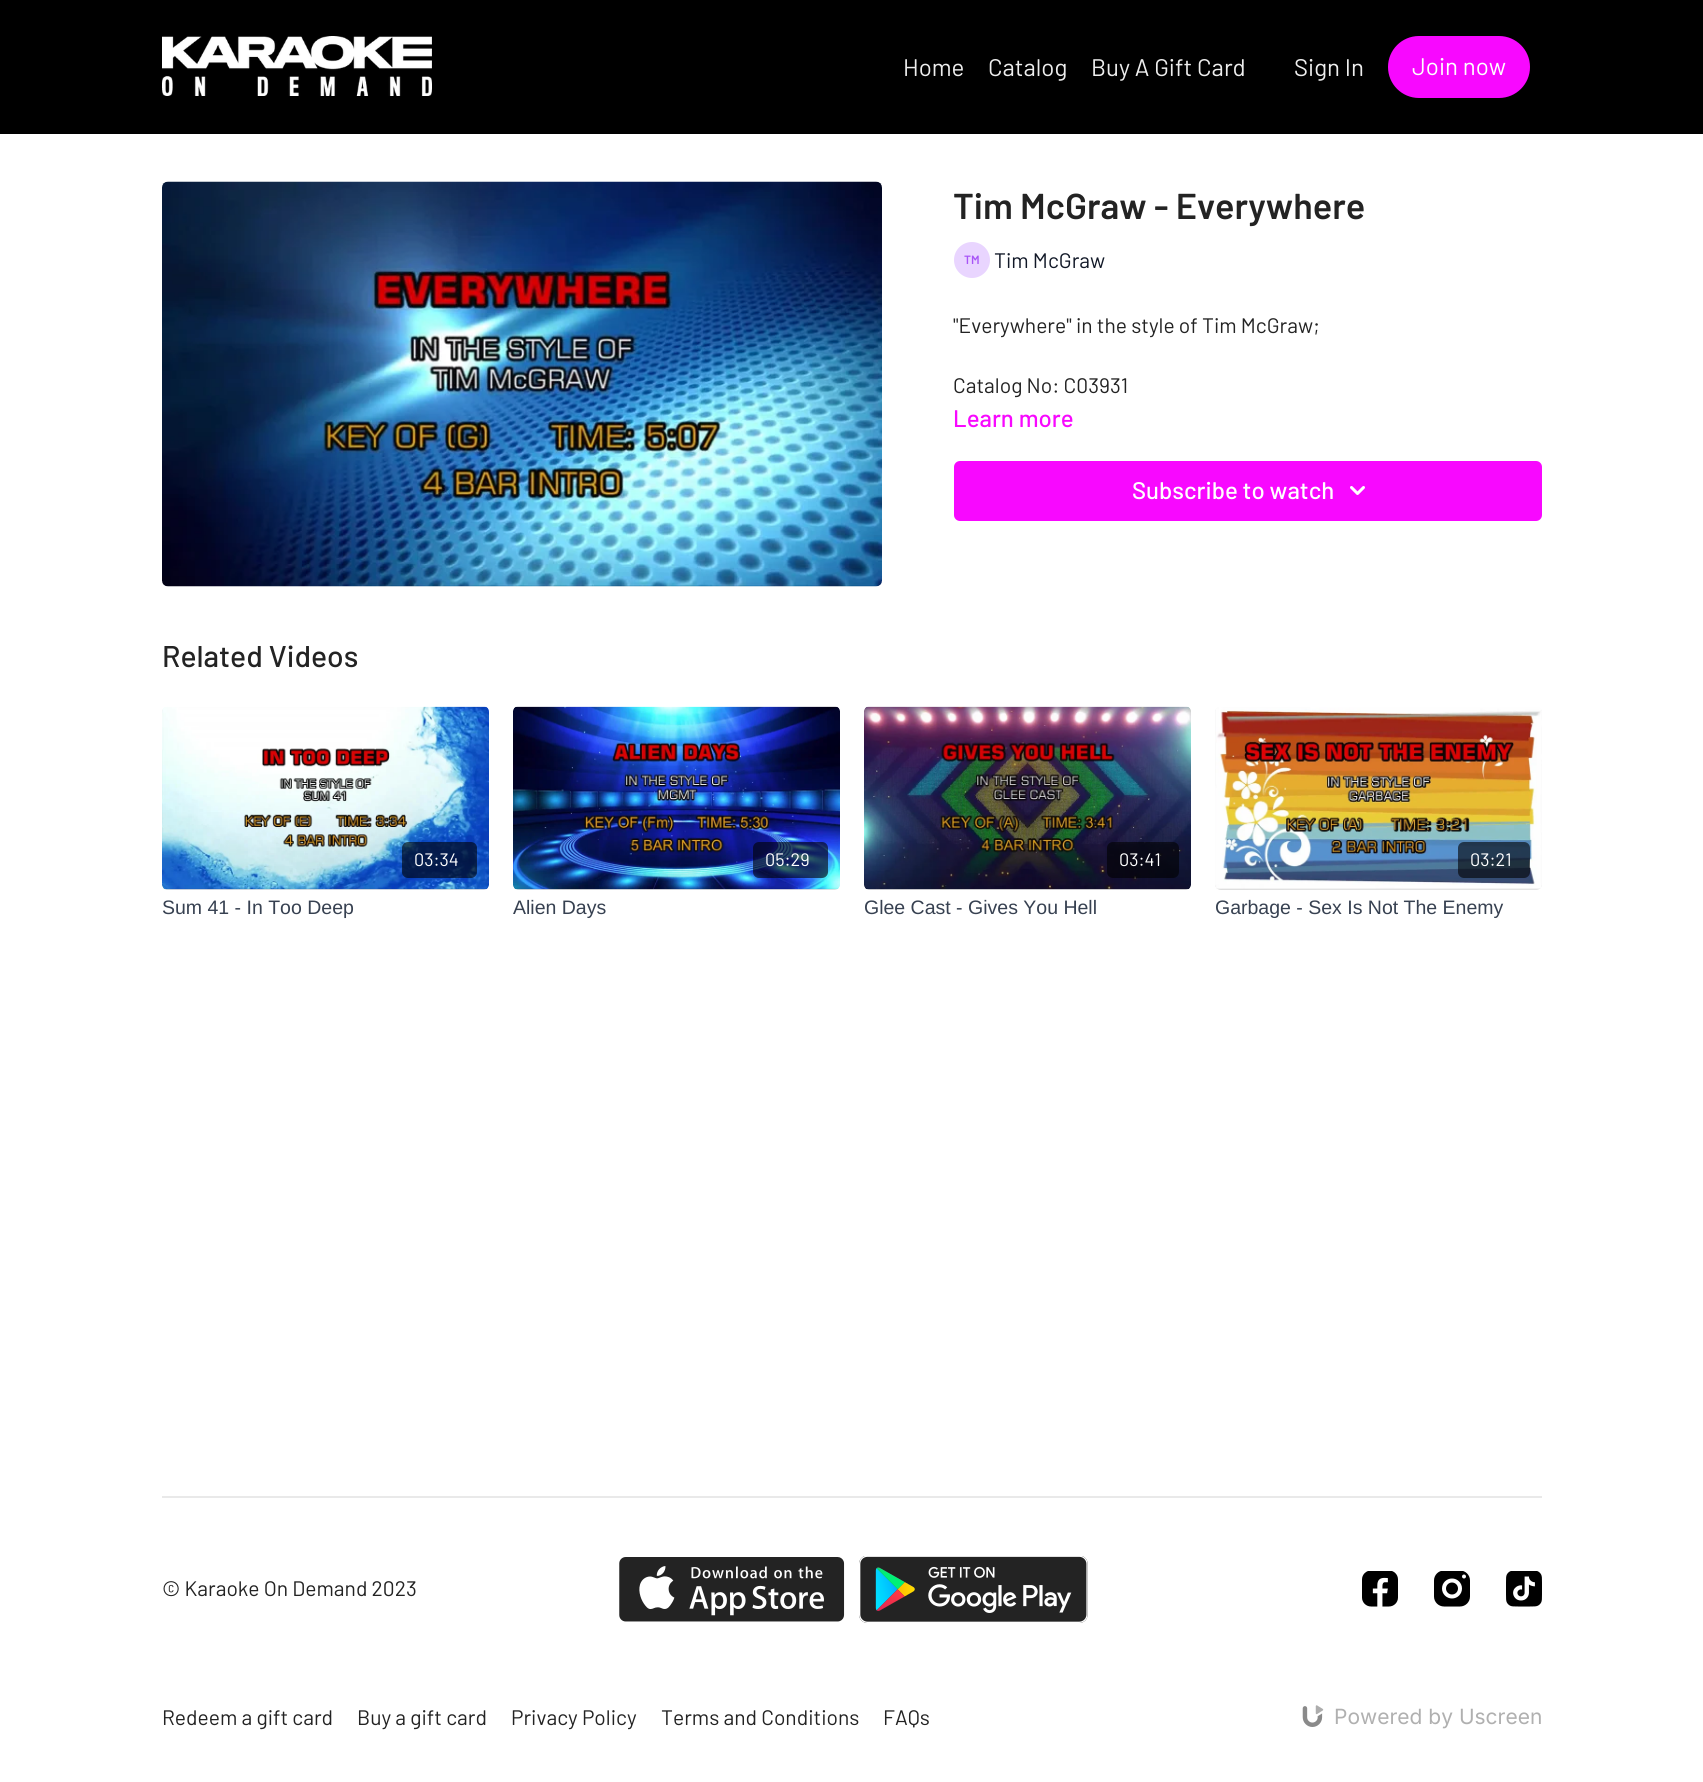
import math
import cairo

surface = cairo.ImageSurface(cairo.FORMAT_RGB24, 1703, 1782)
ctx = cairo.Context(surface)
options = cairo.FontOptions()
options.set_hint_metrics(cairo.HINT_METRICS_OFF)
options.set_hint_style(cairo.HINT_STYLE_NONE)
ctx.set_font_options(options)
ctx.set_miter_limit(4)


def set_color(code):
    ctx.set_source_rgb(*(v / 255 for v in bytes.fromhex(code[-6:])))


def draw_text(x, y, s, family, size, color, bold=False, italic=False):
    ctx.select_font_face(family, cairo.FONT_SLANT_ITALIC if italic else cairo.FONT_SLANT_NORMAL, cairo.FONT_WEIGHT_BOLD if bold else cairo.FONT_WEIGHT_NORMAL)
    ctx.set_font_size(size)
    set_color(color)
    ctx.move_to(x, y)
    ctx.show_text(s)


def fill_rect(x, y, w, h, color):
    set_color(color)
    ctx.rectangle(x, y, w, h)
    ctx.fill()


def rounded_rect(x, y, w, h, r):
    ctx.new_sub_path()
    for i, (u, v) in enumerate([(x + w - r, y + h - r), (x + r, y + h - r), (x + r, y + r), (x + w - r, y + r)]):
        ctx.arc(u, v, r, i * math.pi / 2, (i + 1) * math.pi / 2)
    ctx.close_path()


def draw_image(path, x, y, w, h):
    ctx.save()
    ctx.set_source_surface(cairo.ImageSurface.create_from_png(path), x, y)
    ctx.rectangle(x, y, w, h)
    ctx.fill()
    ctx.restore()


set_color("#ffffff")
ctx.paint()
fill_rect(0, 0, 1703, 134, "#000000")
draw_image("assets/img1.png", 162, 36, 270, 60)
draw_text(903, 76, "Home", "Barlow", 24, "#eeeeee")
draw_text(988, 76, "Catalog", "Barlow", 24, "#eeeeee")
draw_text(1091, 76, "Buy A Gift Card", "Barlow", 24, "#eeeeee")
draw_text(1294, 76, "Sign In", "Barlow", 24, "#eeeeee")
set_color("#f808ff")
rounded_rect(1389, 37, 140, 60, 30)
ctx.fill_preserve()
ctx.stroke()
draw_text(1412, 75, "Join now", "Barlow", 24, "#ffffff")
draw_image("assets/img2.png", 162, 181, 720, 406)
draw_text(953, 219, "Tim McGraw - Everywhere", "Barlow SemiBold", 36, "#232323")
set_color("#e9d5ff")
ctx.new_path()
ctx.arc(972, 260, 18, 0, 2 * math.pi)
ctx.fill()
draw_text(964, 264, "TM", "Barlow SemiBold", 12, "#a855f7")
draw_text(994, 268, "Tim McGraw", "Barlow", 21, "#111827")
draw_text(953, 333, "\"Everywhere\" in the style of Tim McGraw;", "Barlow", 21, "#232323")
draw_text(953, 393, "Catalog No: C03931", "Barlow", 21, "#232323")
draw_text(953, 427, "Learn more", "Barlow Medium", 24, "#f808ff")
rounded_rect(954, 461, 588, 60, 6)
ctx.fill()
draw_text(1132, 499, "Subscribe to watch", "Barlow Medium", 24, "#ffffff")
draw_image("assets/img3.png", 1350, 486, 15, 9)
draw_text(162, 667, "Related Videos", "Barlow Medium", 30, "#232323")
gradient = cairo.LinearGradient(162, 798, 489, 798)
gradient.add_color_stop_rgba(0.08, 0.871, 0.871, 0.871, 1)
gradient.add_color_stop_rgba(0.18, 0.878, 0.878, 0.878, 1)
gradient.add_color_stop_rgba(0.33, 0.89, 0.89, 0.89, 1)
ctx.set_source(gradient)
rounded_rect(162, 707, 327, 183, 6)
ctx.fill()
draw_image("assets/img4.png", 162, 706, 327, 184)
ctx.set_source_rgba(0, 0, 0, 0.6)
rounded_rect(402, 842, 75, 36, 6)
ctx.fill()
draw_text(414, 866, "03:34", "Barlow", 18, "#ffffff")
draw_text(162, 914, "Sum 41 - In Too Deep", "Liberation Sans", 19.5, "#374151")
gradient = cairo.LinearGradient(513, 798, 840, 798)
gradient.add_color_stop_rgba(0.08, 0.871, 0.871, 0.871, 1)
gradient.add_color_stop_rgba(0.18, 0.878, 0.878, 0.878, 1)
gradient.add_color_stop_rgba(0.33, 0.89, 0.89, 0.89, 1)
ctx.set_source(gradient)
rounded_rect(513, 707, 327, 183, 6)
ctx.fill()
draw_image("assets/img5.png", 513, 706, 327, 184)
ctx.set_source_rgba(0, 0, 0, 0.6)
rounded_rect(753, 842, 75, 36, 6)
ctx.fill()
draw_text(765, 866, "05:29", "Barlow", 18, "#ffffff")
draw_text(513, 914, "Alien Days", "Liberation Sans", 19.5, "#374151")
gradient = cairo.LinearGradient(864, 798, 1191, 798)
gradient.add_color_stop_rgba(0.08, 0.871, 0.871, 0.871, 1)
gradient.add_color_stop_rgba(0.18, 0.878, 0.878, 0.878, 1)
gradient.add_color_stop_rgba(0.33, 0.89, 0.89, 0.89, 1)
ctx.set_source(gradient)
rounded_rect(864, 707, 327, 183, 6)
ctx.fill()
draw_image("assets/img6.png", 864, 706, 327, 184)
ctx.set_source_rgba(0, 0, 0, 0.6)
rounded_rect(1107, 842, 72, 36, 6)
ctx.fill()
draw_text(1119, 866, "03:41", "Barlow", 18, "#ffffff")
draw_text(864, 914, "Glee Cast - Gives You Hell", "Liberation Sans", 19.5, "#374151")
gradient = cairo.LinearGradient(1215, 798, 1542, 798)
gradient.add_color_stop_rgba(0.08, 0.871, 0.871, 0.871, 1)
gradient.add_color_stop_rgba(0.18, 0.878, 0.878, 0.878, 1)
gradient.add_color_stop_rgba(0.33, 0.89, 0.89, 0.89, 1)
ctx.set_source(gradient)
rounded_rect(1215, 707, 327, 183, 6)
ctx.fill()
draw_image("assets/img7.png", 1215, 707, 327, 182)
ctx.set_source_rgba(0, 0, 0, 0.6)
rounded_rect(1458, 842, 72, 36, 6)
ctx.fill()
draw_text(1470, 866, "03:21", "Barlow", 18, "#ffffff")
draw_text(1215, 914, "Garbage - Sex Is Not The Enemy", "Liberation Sans", 19.5, "#374151")
fill_rect(162, 1496, 1380, 2, "#e9e9e9")
draw_text(162, 1596, "© Karaoke On Demand 2023", "Barlow", 21, "#232323")
draw_image("assets/img8.png", 619, 1557, 226, 65)
draw_image("assets/img9.png", 859, 1556, 229, 67)
draw_image("assets/img10.png", 1362, 1571, 36, 36)
draw_image("assets/img11.png", 1434, 1571, 36, 36)
draw_image("assets/img12.png", 1506, 1571, 36, 36)
draw_text(162, 1725, "Redeem a gift card", "Barlow", 21, "#232323")
draw_text(357, 1725, "Buy a gift card", "Barlow", 21, "#232323")
draw_text(511, 1725, "Privacy Policy", "Barlow", 21, "#232323")
draw_text(661, 1725, "Terms and Conditions", "Barlow", 21, "#232323")
draw_text(883, 1725, "FAQs", "Barlow", 21, "#232323")
draw_image("assets/img13.png", 1302, 1705, 22, 22)
draw_text(1334, 1724, "Powered by Uscreen", "Inter", 21, "#b0b0b0")
surface.write_to_png("output.png")
